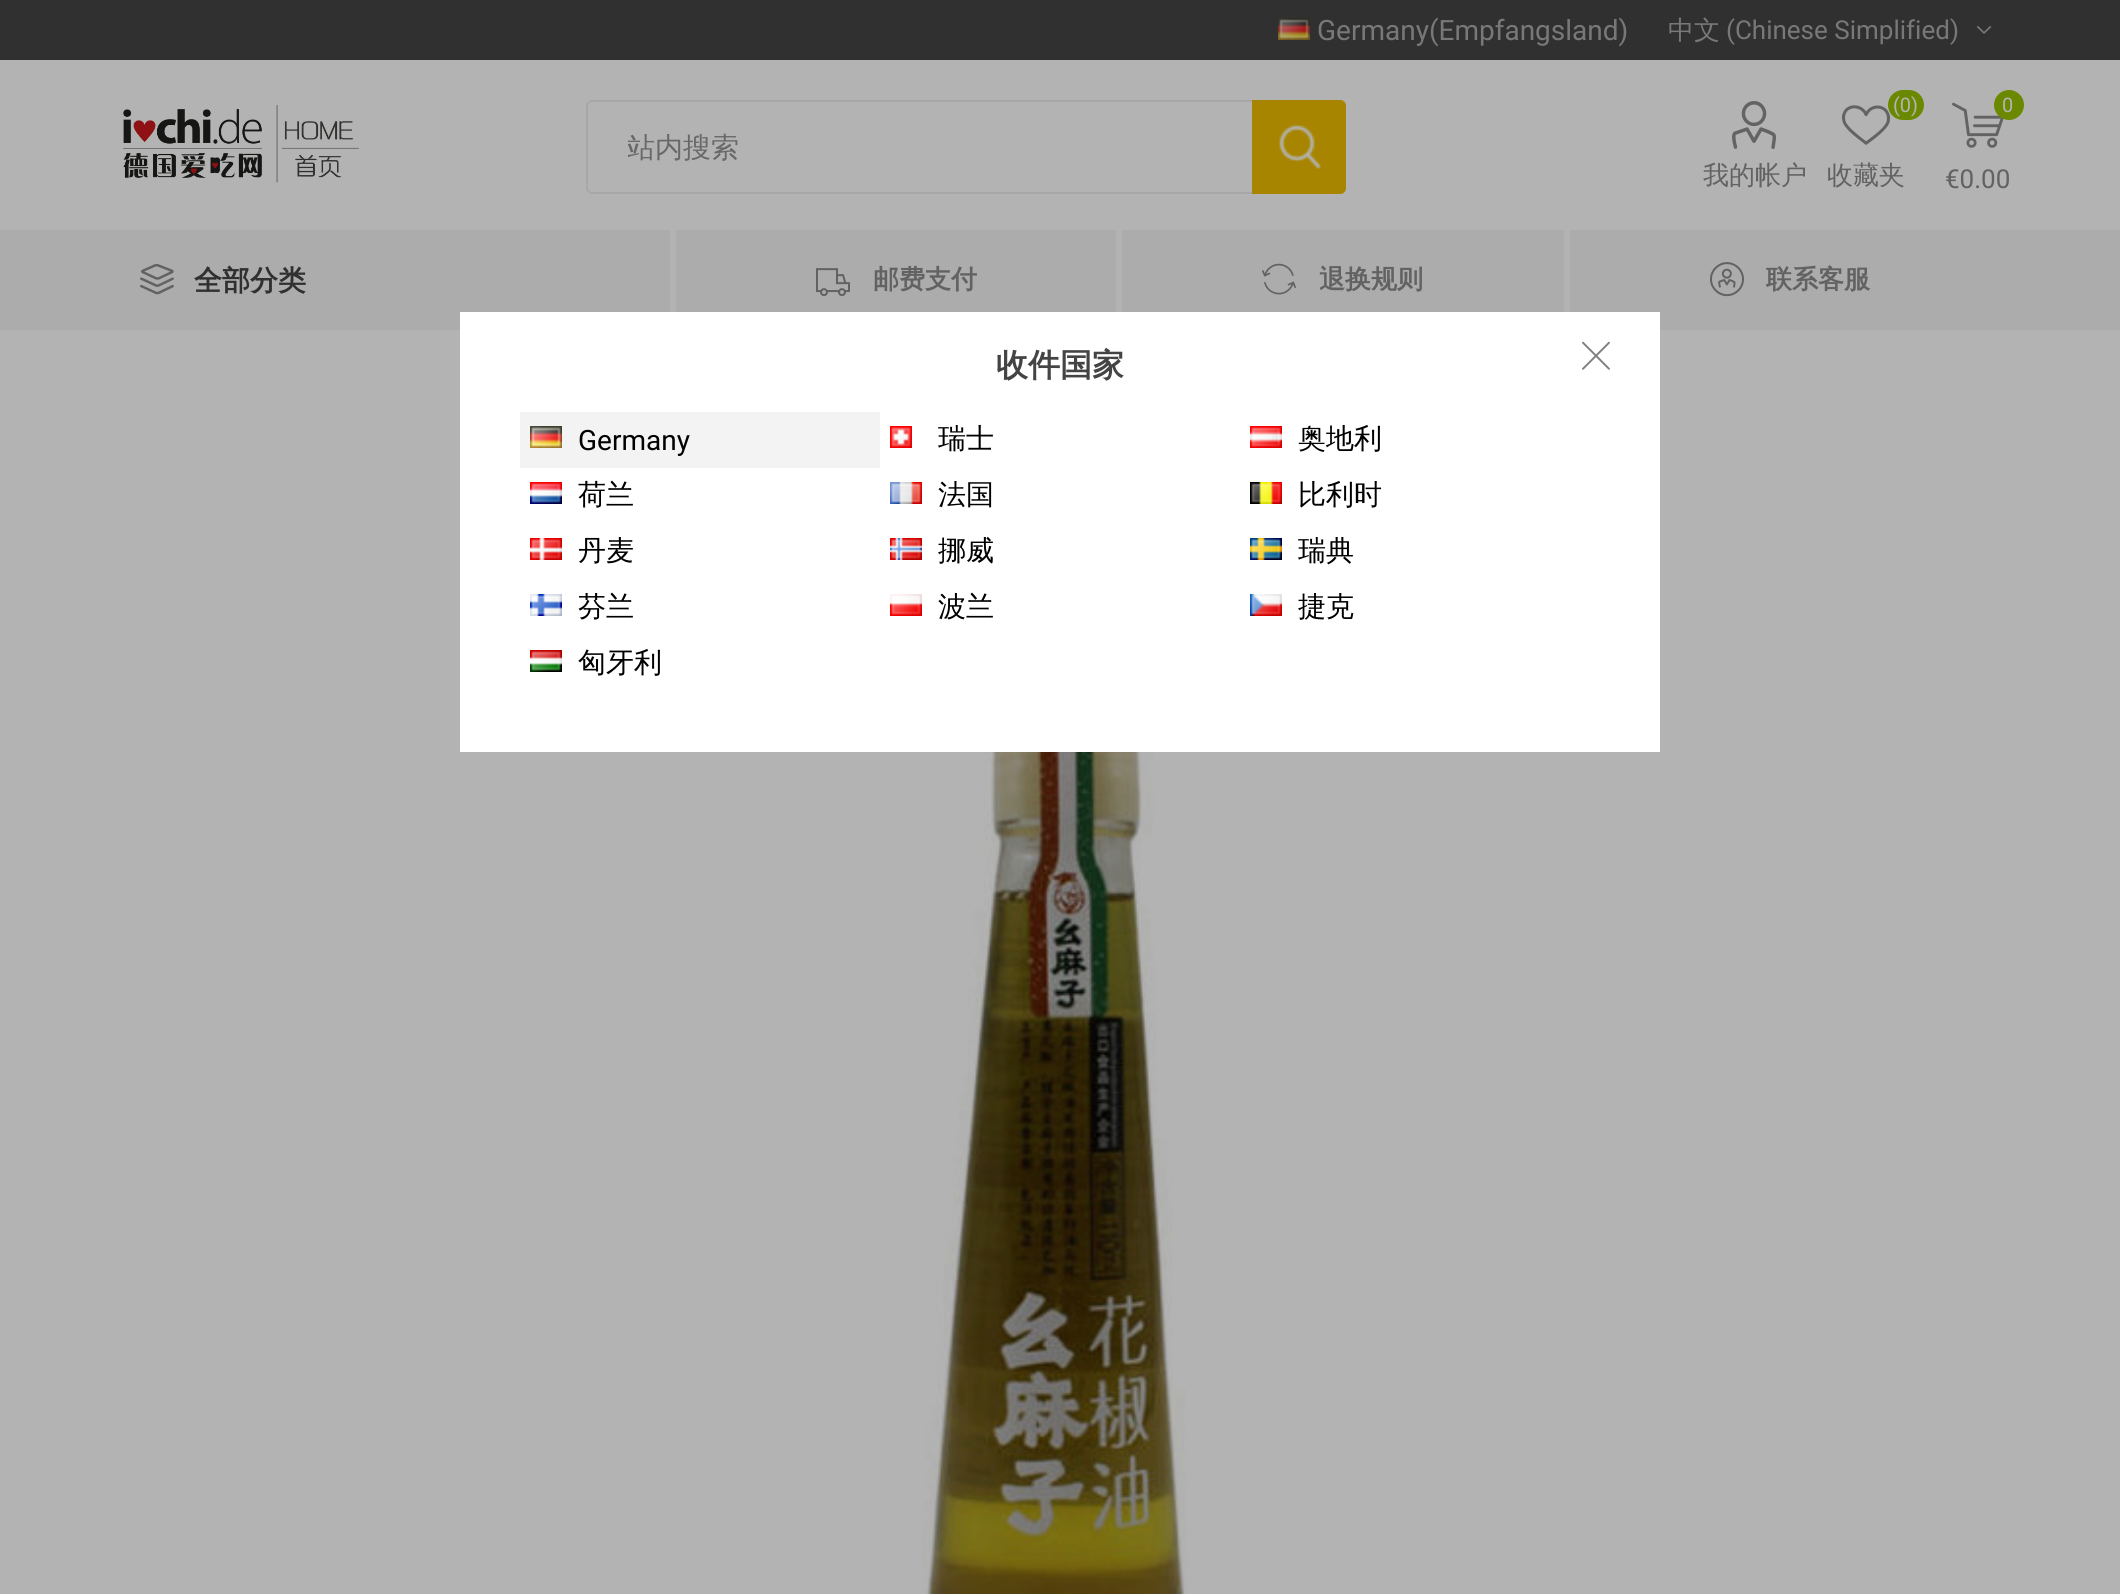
import math
import cairo

surface = cairo.ImageSurface(cairo.FORMAT_RGB24, 2120, 1594)
ctx = cairo.Context(surface)
options = cairo.FontOptions()
options.set_hint_metrics(cairo.HINT_METRICS_OFF)
options.set_hint_style(cairo.HINT_STYLE_NONE)
ctx.set_font_options(options)
ctx.set_miter_limit(4)


def set_color(code):
    ctx.set_source_rgb(*(v / 255 for v in bytes.fromhex(code[-6:])))


def draw_text(x, y, s, family, size, color, bold=False, italic=False):
    ctx.select_font_face(family, cairo.FONT_SLANT_ITALIC if italic else cairo.FONT_SLANT_NORMAL, cairo.FONT_WEIGHT_BOLD if bold else cairo.FONT_WEIGHT_NORMAL)
    ctx.set_font_size(size)
    set_color(color)
    ctx.move_to(x, y)
    ctx.show_text(s)


def fill_rect(x, y, w, h, color):
    set_color(color)
    ctx.rectangle(x, y, w, h)
    ctx.fill()


def rounded_rect(x, y, w, h, r):
    ctx.new_sub_path()
    for i, (u, v) in enumerate([(x + w - r, y + h - r), (x + r, y + h - r), (x + r, y + r), (x + w - r, y + r)]):
        ctx.arc(u, v, r, i * math.pi / 2, (i + 1) * math.pi / 2)
    ctx.close_path()


def draw_image(path, x, y, w, h):
    ctx.save()
    ctx.set_source_surface(cairo.ImageSurface.create_from_png(path), x, y)
    ctx.rectangle(x, y, w, h)
    ctx.fill()
    ctx.restore()


set_color("#b3b3b3")
ctx.paint()
fill_rect(0, 0, 2120, 60, "#303030")
draw_image("assets/img1.png", 1278, 18, 32, 22)
draw_text(1317, 40, "Germany(Empfangsland)", "Roboto", 28, "#787878")
draw_text(1668, 39, "中文", "WenQuanYi Zen Hei Medium", 26, "#787878")
draw_text(1726, 39, "(Chinese Simplified)", "Roboto", 26, "#787878")
draw_image("assets/img2.png", 1977, 26, 15, 8)
draw_image("assets/img3.png", 123, 105, 236, 78)
set_color("#a7a7a7")
ctx.set_fill_rule(cairo.FILL_RULE_EVEN_ODD)
ctx.new_path()
ctx.move_to(592, 100)
ctx.line_to(1252, 100)
ctx.line_to(1252, 194)
ctx.line_to(592, 194)
ctx.curve_to(589, 194, 586, 191, 586, 188)
ctx.line_to(586, 106)
ctx.curve_to(586, 103, 589, 100, 592, 100)
ctx.close_path()
ctx.move_to(592, 102)
ctx.line_to(1252, 102)
ctx.line_to(1252, 192)
ctx.line_to(592, 192)
ctx.curve_to(590, 192, 588, 190, 588, 188)
ctx.line_to(588, 106)
ctx.curve_to(588, 104, 590, 102, 592, 102)
ctx.close_path()
ctx.fill()
ctx.save()
ctx.set_fill_rule(cairo.FILL_RULE_WINDING)
ctx.rectangle(628, 132, 584, 36)
ctx.clip()
draw_text(627, 157, "站内搜索", "WenQuanYi Zen Hei Medium", 28, "#686868")
ctx.restore()
set_color("#a78500")
ctx.new_path()
ctx.move_to(1252, 100)
ctx.line_to(1340, 100)
ctx.curve_to(1343.5, 100, 1346, 102.5, 1346, 106)
ctx.line_to(1346, 188)
ctx.curve_to(1346, 191.5, 1343.5, 194, 1340, 194)
ctx.line_to(1252, 194)
ctx.close_path()
ctx.fill()
draw_image("assets/img4.png", 1279, 125, 42, 44)
draw_image("assets/img5.png", 1732, 101, 44, 48)
draw_text(1703, 184, "我的帐户", "WenQuanYi Zen Hei Medium", 26, "#626262")
draw_image("assets/img6.png", 1841, 105, 49, 40)
set_color("#6a8900")
rounded_rect(1888, 90, 36, 30, 15)
ctx.fill()
draw_text(1893, 112, "(0)", "Roboto", 20, "#b3b3b3")
draw_text(1827, 184, "收藏夹", "WenQuanYi Zen Hei Medium", 26, "#626262")
draw_image("assets/img7.png", 1952, 102, 52, 46)
set_color("#6a8900")
ctx.arc(2009, 105, 15, 0, 2 * math.pi)
ctx.fill()
draw_text(2002, 112, "0", "Roboto", 20, "#b3b3b3")
draw_text(1945, 188, "€0.00", "Roboto", 26, "#626262")
fill_rect(0, 230, 2120, 100, "#acacac")
fill_rect(670, 230, 6, 82, "#b3b3b3")
draw_image("assets/img8.png", 140, 263, 34, 32)
draw_text(194, 290, "全部分类", "WenQuanYi Zen Hei", 28, "#303030", bold=True)
fill_rect(1116, 230, 6, 82, "#b3b3b3")
draw_image("assets/img9.png", 816, 268, 34, 29)
draw_text(873, 288, "邮费支付", "WenQuanYi Zen Hei", 26, "#626262", bold=True)
fill_rect(1564, 230, 6, 82, "#b3b3b3")
draw_image("assets/img10.png", 1262, 263, 34, 32)
draw_text(1319, 288, "退换规则", "WenQuanYi Zen Hei", 26, "#626262", bold=True)
draw_image("assets/img11.png", 1710, 262, 34, 35)
draw_text(1766, 288, "联系客服", "WenQuanYi Zen Hei", 26, "#626262", bold=True)
draw_image("assets/img12.png", 923, 752, 264, 842)
fill_rect(460, 312, 1200, 440, "#ffffff")
draw_text(996, 376, "收件国家", "WenQuanYi Zen Hei", 32, "#444444", bold=True)
draw_image("assets/img13.png", 1582, 341, 28, 29)
fill_rect(520, 412, 360, 56, "#f3f3f3")
draw_image("assets/img14.png", 530, 426, 32, 22)
draw_text(578, 450, "Germany", "Roboto", 28, "#000000")
draw_image("assets/img15.png", 890, 426, 22, 22)
draw_text(938, 448, "瑞士", "WenQuanYi Zen Hei Medium", 28, "#000000")
draw_image("assets/img16.png", 1250, 426, 32, 22)
draw_text(1298, 448, "奥地利", "WenQuanYi Zen Hei Medium", 28, "#000000")
draw_image("assets/img17.png", 530, 482, 32, 22)
draw_text(578, 504, "荷兰", "WenQuanYi Zen Hei Medium", 28, "#000000")
draw_image("assets/img18.png", 890, 482, 32, 22)
draw_text(938, 504, "法国", "WenQuanYi Zen Hei Medium", 28, "#000000")
draw_image("assets/img19.png", 1250, 482, 32, 22)
draw_text(1298, 504, "比利时", "WenQuanYi Zen Hei Medium", 28, "#000000")
draw_image("assets/img20.png", 530, 538, 32, 22)
draw_text(578, 560, "丹麦", "WenQuanYi Zen Hei Medium", 28, "#000000")
draw_image("assets/img21.png", 890, 538, 32, 22)
draw_text(938, 560, "挪威", "WenQuanYi Zen Hei Medium", 28, "#000000")
draw_image("assets/img22.png", 1250, 538, 32, 22)
draw_text(1298, 560, "瑞典", "WenQuanYi Zen Hei Medium", 28, "#000000")
draw_image("assets/img23.png", 530, 594, 32, 22)
draw_text(578, 616, "芬兰", "WenQuanYi Zen Hei Medium", 28, "#000000")
draw_image("assets/img24.png", 890, 594, 32, 22)
draw_text(938, 616, "波兰", "WenQuanYi Zen Hei Medium", 28, "#000000")
draw_image("assets/img25.png", 1250, 594, 32, 22)
draw_text(1298, 616, "捷克", "WenQuanYi Zen Hei Medium", 28, "#000000")
draw_image("assets/img26.png", 530, 650, 32, 22)
draw_text(578, 672, "匈牙利", "WenQuanYi Zen Hei Medium", 28, "#000000")
surface.write_to_png("output.png")
